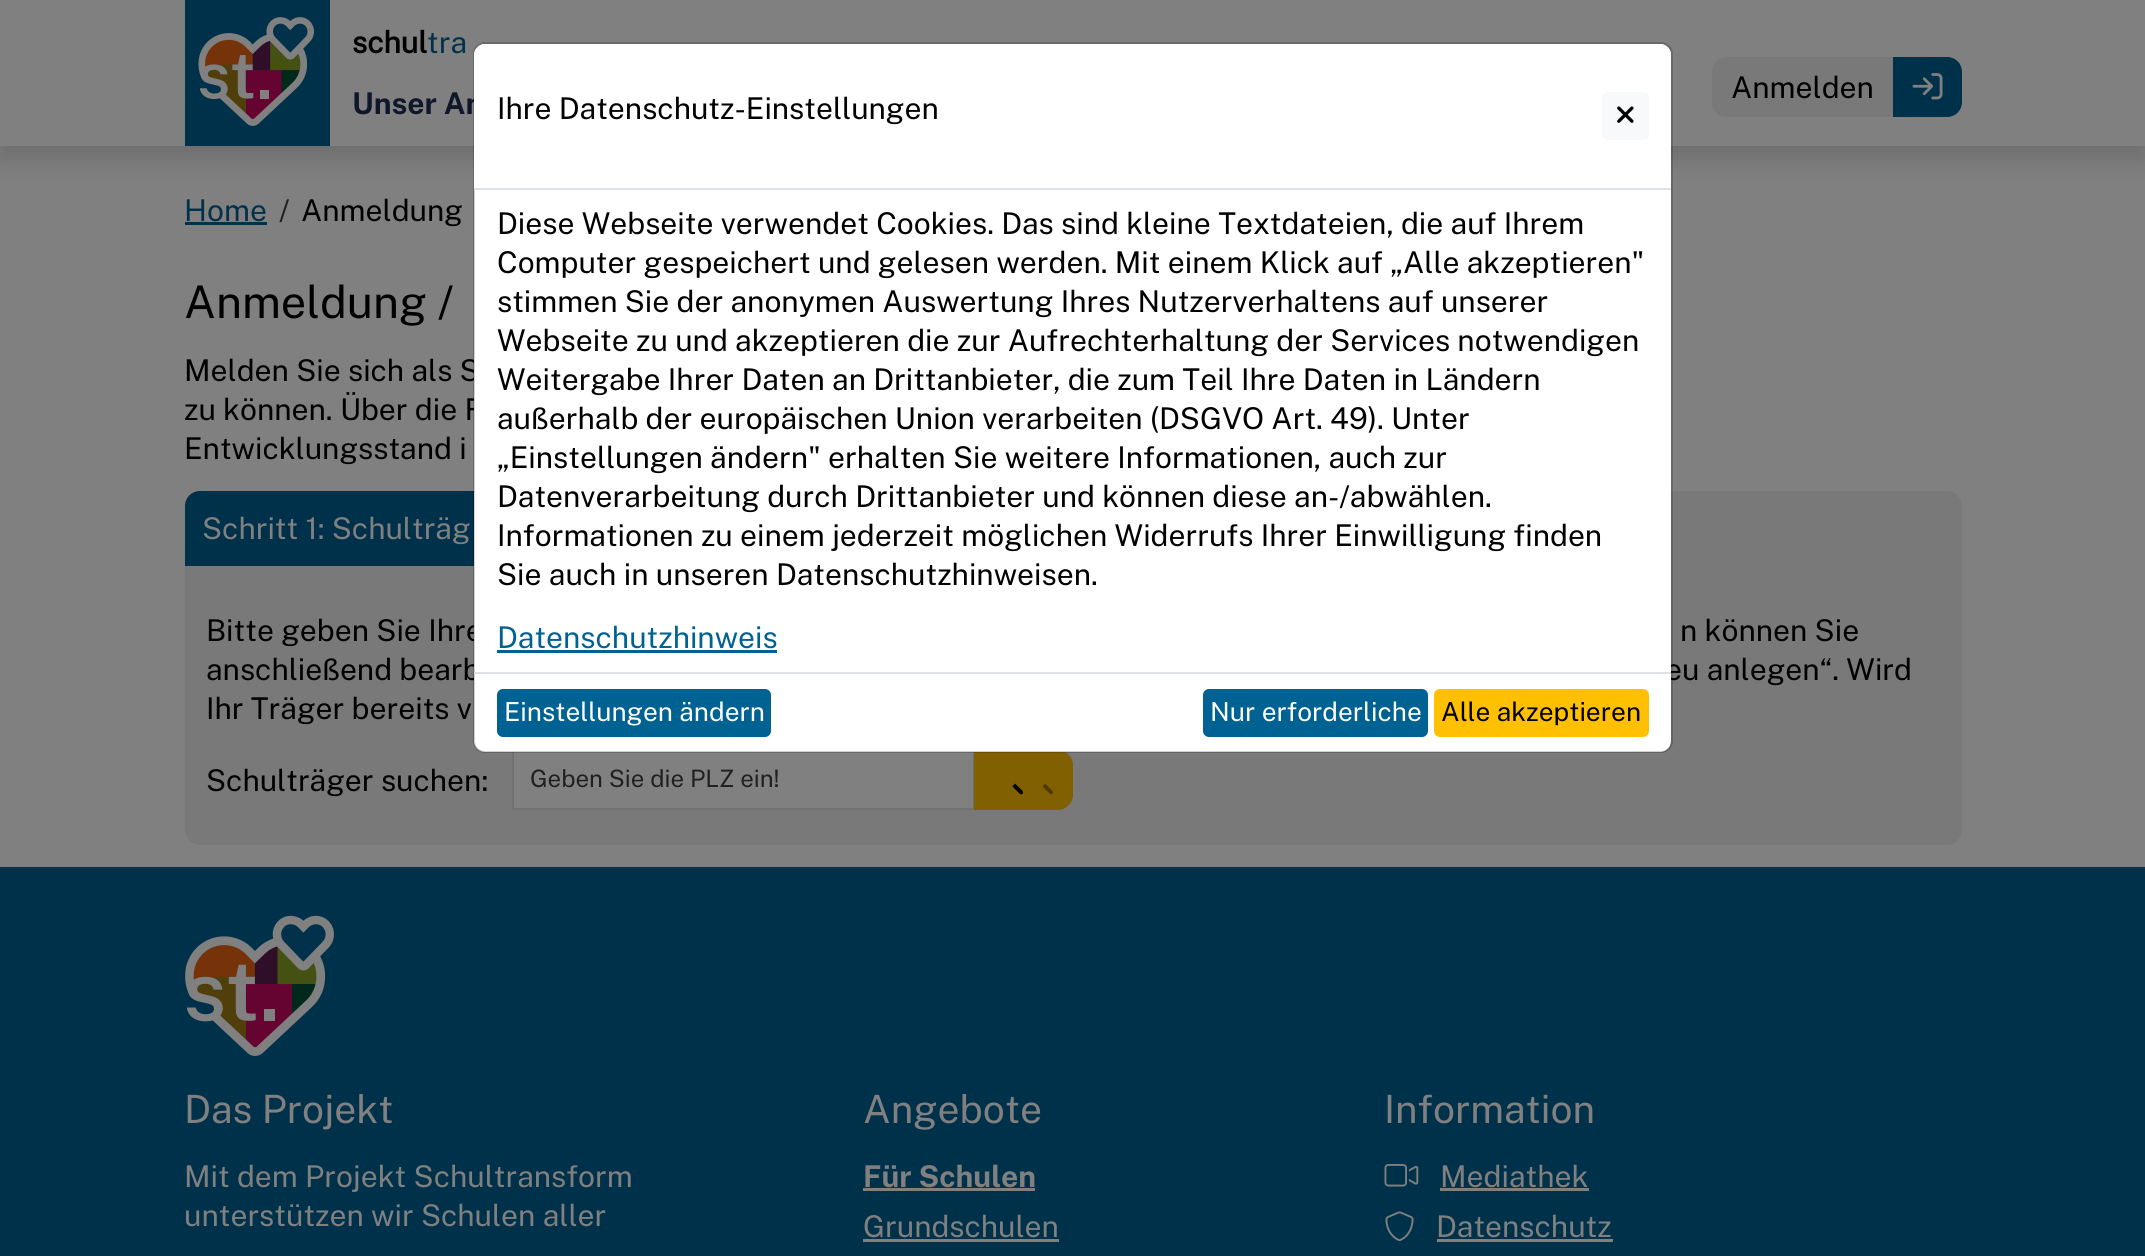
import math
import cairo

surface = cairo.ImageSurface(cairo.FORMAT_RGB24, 2145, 1256)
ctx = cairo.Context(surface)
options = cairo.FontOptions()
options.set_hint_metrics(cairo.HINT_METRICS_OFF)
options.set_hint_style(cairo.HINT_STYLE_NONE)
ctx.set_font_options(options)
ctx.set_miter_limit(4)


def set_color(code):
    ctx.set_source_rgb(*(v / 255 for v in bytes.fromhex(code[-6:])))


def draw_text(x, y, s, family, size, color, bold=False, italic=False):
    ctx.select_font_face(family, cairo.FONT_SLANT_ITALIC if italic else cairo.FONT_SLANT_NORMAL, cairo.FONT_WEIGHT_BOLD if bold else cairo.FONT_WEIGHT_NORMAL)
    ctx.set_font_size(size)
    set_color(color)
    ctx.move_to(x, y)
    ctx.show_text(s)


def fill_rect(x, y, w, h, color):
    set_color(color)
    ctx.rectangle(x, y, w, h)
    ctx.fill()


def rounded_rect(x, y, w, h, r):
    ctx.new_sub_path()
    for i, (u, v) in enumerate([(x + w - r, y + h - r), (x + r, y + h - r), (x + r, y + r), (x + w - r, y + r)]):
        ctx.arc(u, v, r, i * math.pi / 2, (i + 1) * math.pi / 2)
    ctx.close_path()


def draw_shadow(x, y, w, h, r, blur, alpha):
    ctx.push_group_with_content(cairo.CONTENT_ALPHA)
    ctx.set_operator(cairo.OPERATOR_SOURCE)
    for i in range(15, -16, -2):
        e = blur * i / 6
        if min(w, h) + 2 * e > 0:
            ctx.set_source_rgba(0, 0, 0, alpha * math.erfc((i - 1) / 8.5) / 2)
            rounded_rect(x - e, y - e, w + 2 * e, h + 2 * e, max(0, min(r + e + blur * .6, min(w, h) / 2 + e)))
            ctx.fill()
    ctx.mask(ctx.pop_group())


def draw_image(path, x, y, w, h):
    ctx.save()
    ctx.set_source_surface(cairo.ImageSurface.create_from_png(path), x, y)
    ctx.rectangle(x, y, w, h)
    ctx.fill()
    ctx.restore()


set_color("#808080")
ctx.paint()
set_color("#000000")
draw_shadow(0, 12, 2145, 146, 0, 12, 0.15)
fill_rect(0, 0, 2145, 146, "#808080")
fill_rect(185, 0, 145, 146, "#00314a")
draw_image("assets/img1.png", 198, 17, 116, 109)
draw_text(352, 53, "schul", "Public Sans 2", 30, "#000000", bold=True)
draw_text(427, 53, "tra", "Public Sans", 30, "#00314a")
draw_text(352, 114, "Unser An", "Public Sans", 30, "#10172a", bold=True)
set_color("#797979")
ctx.new_path()
ctx.move_to(1727, 57)
ctx.line_to(1895, 57)
ctx.line_to(1895, 117)
ctx.line_to(1727, 117)
ctx.curve_to(1718.5, 117, 1712, 110.5, 1712, 102)
ctx.line_to(1712, 72)
ctx.curve_to(1712, 63.5, 1718.5, 57, 1727, 57)
ctx.close_path()
ctx.fill()
draw_text(1731, 98, "Anmelden", "Public Sans", 30, "#000000")
set_color("#00314a")
ctx.new_path()
ctx.move_to(1893, 57)
ctx.line_to(1947, 57)
ctx.curve_to(1955.5, 57, 1962, 63.5, 1962, 72)
ctx.line_to(1962, 102)
ctx.curve_to(1962, 110.5, 1955.5, 117, 1947, 117)
ctx.line_to(1893, 117)
ctx.close_path()
ctx.fill()
draw_image("assets/img2.png", 1912, 73, 31, 27)
draw_text(184, 221, "Home", "Public Sans", 30, "#00314a")
fill_rect(185, 222, 82, 3, "#00314a")
draw_text(279, 221, "/", "Public Sans", 30, "#202020")
draw_text(301, 221, "Anmeldung", "Public Sans", 30, "#000000")
draw_text(184, 318, "Anmeldung /", "Public Sans", 45, "#000000")
draw_text(184, 381, "Melden Sie sich als S", "Public Sans", 30, "#000000")
draw_text(184, 420, "zu können. Über die F", "Public Sans", 30, "#000000")
draw_text(184, 459, "Entwicklungsstand i", "Public Sans", 30, "#000000")
set_color("#797979")
rounded_rect(185, 491, 1777, 354, 15)
ctx.fill()
set_color("#00314a")
ctx.new_path()
ctx.move_to(200, 491)
ctx.line_to(600, 491)
ctx.line_to(600, 566)
ctx.line_to(185, 566)
ctx.line_to(185, 506)
ctx.curve_to(185, 497.5, 191.5, 491, 200, 491)
ctx.close_path()
ctx.fill()
draw_text(202, 539, "Schritt 1: Schulträg", "Public Sans", 30, "#808080")
draw_text(206, 641, "Bitte geben Sie Ihre", "Public Sans", 30, "#000000")
draw_text(1680, 641, "n können Sie", "Public Sans", 30, "#000000")
draw_text(206, 680, "anschließend bearb", "Public Sans", 30, "#000000")
draw_text(1665, 680, "eu anlegen“. Wird", "Public Sans", 30, "#000000")
draw_text(206, 719, "Ihr Träger bereits v", "Public Sans", 30, "#000000")
draw_text(206, 791, "Schulträger suchen:", "Public Sans", 30, "#000000")
set_color("#808080")
ctx.rectangle(513, 751, 461, 58)
ctx.fill_preserve()
set_color("#6f7173")
ctx.stroke()
draw_text(530, 787, "Geben Sie die PLZ ein!", "Public Sans", 24, "#202020")
set_color("#806001")
ctx.new_path()
ctx.move_to(975, 751)
ctx.line_to(1058, 751)
ctx.curve_to(1065.5, 751, 1072, 757.5, 1072, 765)
ctx.line_to(1072, 795)
ctx.curve_to(1072, 802.5, 1065.5, 809, 1058, 809)
ctx.line_to(975, 809)
ctx.close_path()
ctx.fill_preserve()
ctx.stroke()
draw_image("assets/img3.png", 1012, 783, 11, 12)
draw_image("assets/img4.png", 1012, 783, 41, 12)
fill_rect(0, 867, 2145, 389, "#00314a")
draw_image("assets/img5.png", 185, 915, 149, 141)
draw_text(184, 1123, "Das Projekt", "Public Sans", 39, "#808080")
draw_text(184, 1187, "Mit dem Projekt Schultransform", "Public Sans", 30, "#808080")
draw_text(184, 1226, "unterstützen wir Schulen aller", "Public Sans", 30, "#808080")
draw_text(863, 1123, "Angebote", "Public Sans", 39, "#808080")
draw_text(863, 1187, "Für Schulen", "Public Sans", 30, "#808080", bold=True)
fill_rect(863, 1188, 172, 3, "#808080")
draw_text(863, 1237, "Grundschulen", "Public Sans", 30, "#808080")
fill_rect(863, 1239, 196, 3, "#808080")
draw_text(1384, 1123, "Information", "Public Sans", 39, "#808080")
draw_image("assets/img6.png", 1384, 1164, 35, 23)
draw_text(1440, 1187, "Mediathek", "Public Sans", 30, "#808080")
fill_rect(1440, 1188, 149, 3, "#808080")
draw_image("assets/img7.png", 1385, 1211, 29, 31)
draw_text(1436, 1237, "Datenschutz", "Public Sans", 30, "#808080")
fill_rect(1437, 1239, 176, 3, "#808080")
set_color("#ffffff")
rounded_rect(474, 44, 1197, 708, 11)
ctx.fill()
rounded_rect(474, 43, 1198, 709, 11)
ctx.set_source_rgba(0, 0, 0, 0.18)
ctx.stroke()
set_color("#ffffff")
ctx.new_path()
ctx.move_to(485, 44)
ctx.line_to(1660, 44)
ctx.curve_to(1666, 44, 1671, 49, 1671, 55)
ctx.line_to(1671, 189)
ctx.line_to(474, 189)
ctx.line_to(474, 55)
ctx.curve_to(474, 49, 479, 44, 485, 44)
ctx.close_path()
ctx.fill()
fill_rect(474, 188, 1197, 2, "#dee2e6")
draw_text(497, 119, "Ihre Datenschutz-Einstellungen", "Public Sans", 30, "#000000")
set_color("#f8f9fa")
rounded_rect(1602, 92, 47, 48, 6)
ctx.fill()
draw_image("assets/img8.png", 1617, 106, 17, 17)
draw_text(497, 234, "Diese Webseite verwendet Cookies. Das sind kleine Textdateien, die auf Ihrem", "Public Sans", 30, "#000000")
draw_text(497, 273, "Computer gespeichert und gelesen werden. Mit einem Klick auf „Alle akzeptieren\"", "Public Sans", 30, "#000000")
draw_text(497, 312, "stimmen Sie der anonymen Auswertung Ihres Nutzerverhaltens auf unserer", "Public Sans", 30, "#000000")
draw_text(497, 351, "Webseite zu und akzeptieren die zur Aufrechterhaltung der Services notwendigen", "Public Sans", 30, "#000000")
draw_text(497, 390, "Weitergabe Ihrer Daten an Drittanbieter, die zum Teil Ihre Daten in Ländern", "Public Sans", 30, "#000000")
draw_text(497, 429, "außerhalb der europäischen Union verarbeiten (DSGVO Art. 49). Unter", "Public Sans", 30, "#000000")
draw_text(497, 468, "„Einstellungen ändern\" erhalten Sie weitere Informationen, auch zur", "Public Sans", 30, "#000000")
draw_text(497, 507, "Datenverarbeitung durch Drittanbieter und können diese an-/abwählen.", "Public Sans", 30, "#000000")
draw_text(497, 546, "Informationen zu einem jederzeit möglichen Widerrufs Ihrer Einwilligung finden", "Public Sans", 30, "#000000")
draw_text(497, 585, "Sie auch in unseren Datenschutzhinweisen.", "Public Sans", 30, "#000000")
draw_text(497, 648, "Datenschutzhinweis", "Public Sans", 30, "#006293")
fill_rect(497, 650, 280, 3, "#006293")
fill_rect(474, 672, 1197, 2, "#dee2e6")
set_color("#006293")
rounded_rect(498, 690, 272, 46, 5)
ctx.fill_preserve()
ctx.stroke()
draw_text(504, 721, "Einstellungen ändern", "Public Sans", 26.25, "#ffffff")
set_color("#006293")
rounded_rect(1204, 690, 223, 46, 5)
ctx.fill_preserve()
ctx.stroke()
draw_text(1210, 721, "Nur erforderliche", "Public Sans", 26.25, "#ffffff")
set_color("#ffc001")
rounded_rect(1435, 690, 213, 46, 5)
ctx.fill_preserve()
ctx.stroke()
draw_text(1441, 721, "Alle akzeptieren", "Public Sans", 26.25, "#000000")
surface.write_to_png("output.png")
